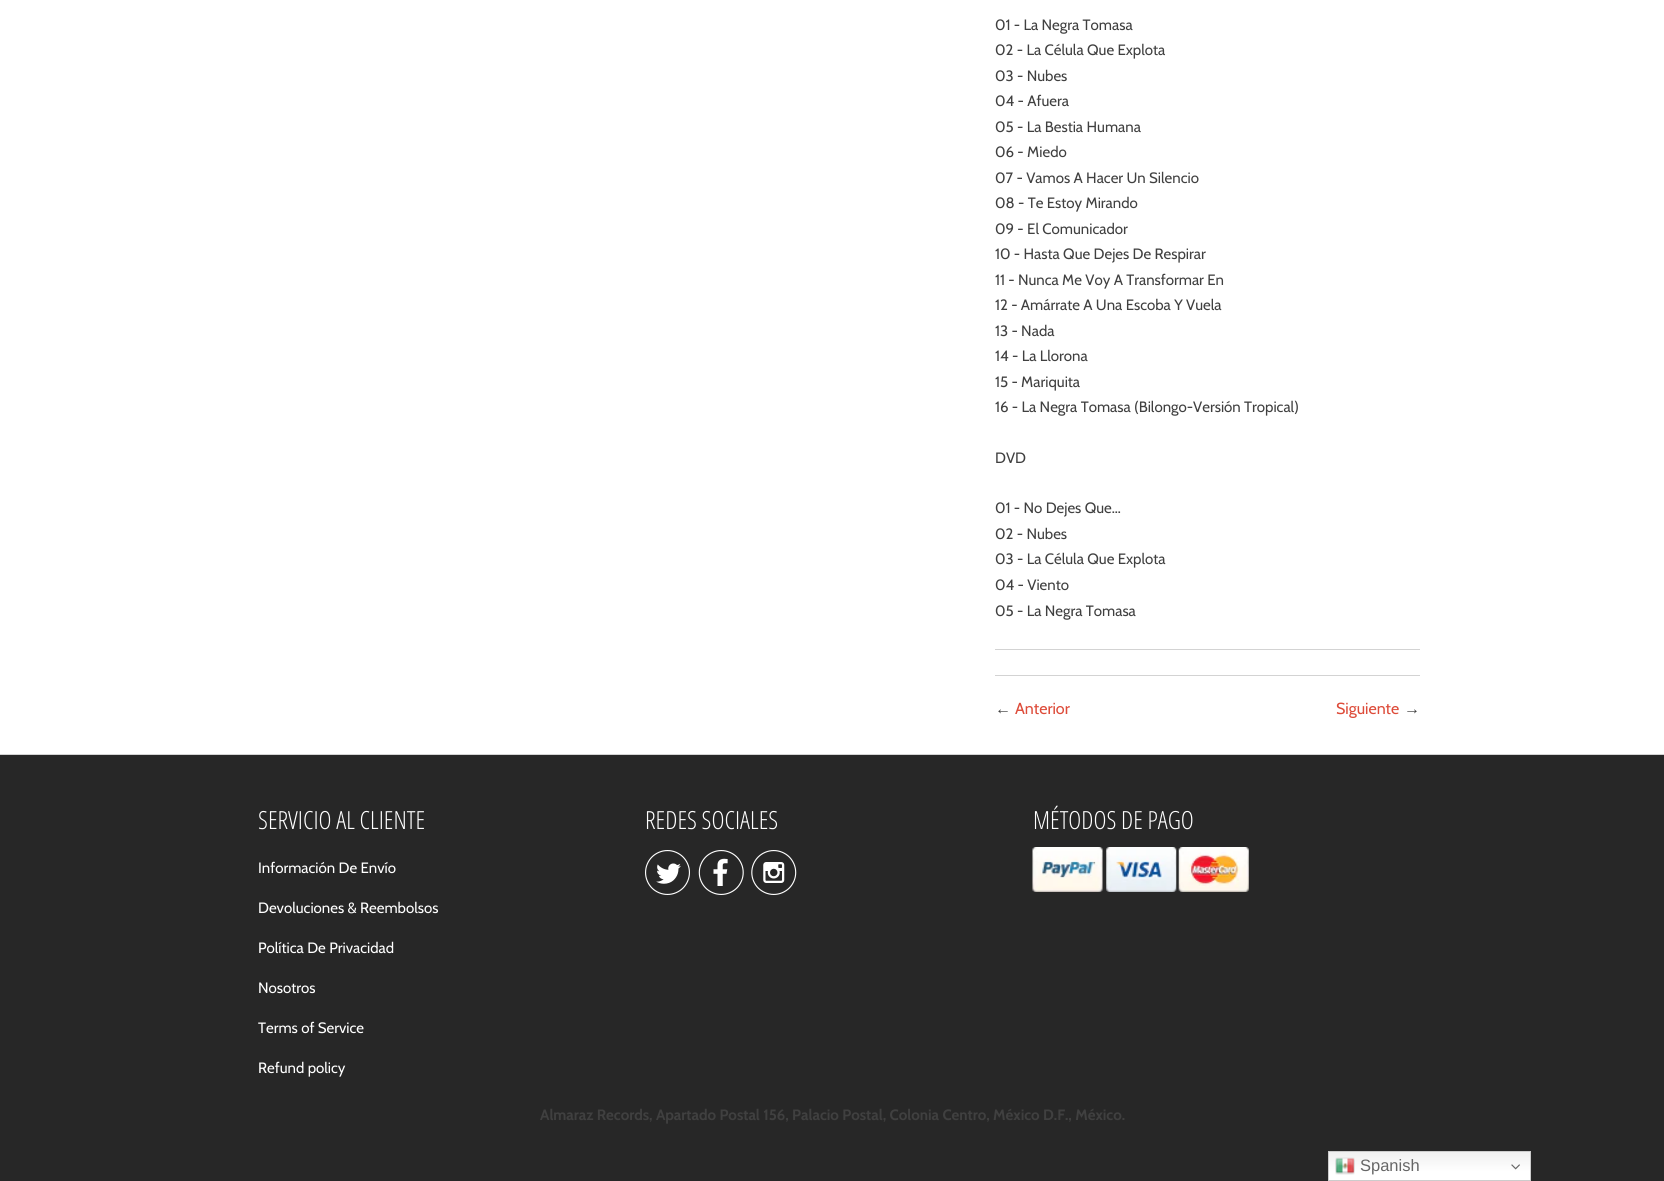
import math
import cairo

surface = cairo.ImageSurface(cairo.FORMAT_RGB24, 1664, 1181)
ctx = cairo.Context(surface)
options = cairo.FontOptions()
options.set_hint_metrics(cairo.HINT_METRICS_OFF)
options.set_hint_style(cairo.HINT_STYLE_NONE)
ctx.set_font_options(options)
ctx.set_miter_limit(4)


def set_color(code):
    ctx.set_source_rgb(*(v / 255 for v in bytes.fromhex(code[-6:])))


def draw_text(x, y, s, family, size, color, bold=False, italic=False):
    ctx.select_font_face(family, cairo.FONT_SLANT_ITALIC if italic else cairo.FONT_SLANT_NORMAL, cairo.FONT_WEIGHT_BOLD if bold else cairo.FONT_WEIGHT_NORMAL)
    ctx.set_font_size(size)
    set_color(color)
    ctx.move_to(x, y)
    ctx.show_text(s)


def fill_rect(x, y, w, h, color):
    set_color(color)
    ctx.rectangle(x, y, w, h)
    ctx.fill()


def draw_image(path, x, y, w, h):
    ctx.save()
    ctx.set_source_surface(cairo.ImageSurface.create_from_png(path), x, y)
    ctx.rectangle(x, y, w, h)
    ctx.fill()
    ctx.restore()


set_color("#ffffff")
ctx.paint()
draw_text(995, 30, "01 - La Negra Tomasa", "Cabin", 15, "#404040")
draw_text(995, 55, "02 - La Célula Que Explota", "Cabin", 15, "#404040")
draw_text(995, 81, "03 - Nubes", "Cabin", 15, "#404040")
draw_text(995, 106, "04 - Afuera", "Cabin", 15, "#404040")
draw_text(995, 132, "05 - La Bestia Humana", "Cabin", 15, "#404040")
draw_text(995, 157, "06 - Miedo", "Cabin", 15, "#404040")
draw_text(995, 183, "07 - Vamos A Hacer Un Silencio", "Cabin", 15, "#404040")
draw_text(995, 208, "08 - Te Estoy Mirando", "Cabin", 15, "#404040")
draw_text(995, 234, "09 - El Comunicador", "Cabin", 15, "#404040")
draw_text(995, 259, "10 - Hasta Que Dejes De Respirar", "Cabin", 15, "#404040")
draw_text(995, 285, "11 - Nunca Me Voy A Transformar En", "Cabin", 15, "#404040")
draw_text(995, 310, "12 - Amárrate A Una Escoba Y Vuela", "Cabin", 15, "#404040")
draw_text(995, 336, "13 - Nada", "Cabin", 15, "#404040")
draw_text(995, 361, "14 - La Llorona", "Cabin", 15, "#404040")
draw_text(995, 387, "15 - Mariquita", "Cabin", 15, "#404040")
draw_text(995, 412, "16 - La Negra Tomasa (Bilongo-Versión Tropical)", "Cabin", 15, "#404040")
draw_text(995, 463, "DVD", "Cabin", 15, "#404040")
draw_text(995, 513, "01 - No Dejes Que…", "Cabin", 15, "#404040")
draw_text(995, 539, "02 - Nubes", "Cabin", 15, "#404040")
draw_text(995, 564, "03 - La Célula Que Explota", "Cabin", 15, "#404040")
draw_text(995, 590, "04 - Viento", "Cabin", 15, "#404040")
draw_text(995, 616, "05 - La Negra Tomasa", "Cabin", 15, "#404040")
fill_rect(995, 649, 425, 1, "#d3d3d3")
fill_rect(995, 675, 425, 1, "#d3d3d3")
draw_text(995, 714, "←", "Liberation Serif", 16, "#404040")
draw_text(1015, 714, "Anterior", "Cabin", 16, "#dd4b39")
draw_text(1336, 714, "Siguiente", "Cabin", 16, "#dd4b39")
draw_text(1404, 714, "→", "Liberation Serif", 16, "#404040")
fill_rect(0, 755, 1664, 426, "#272727")
fill_rect(0, 754, 1664, 1, "#d3d3d3")
draw_text(258, 829, "SERVICIO AL CLIENTE", "Open Sans Condensed Light", 25, "#ffffff")
draw_text(258, 873, "Información De Envío", "Cabin", 15, "#ffffff")
draw_text(258, 913, "Devoluciones & Reembolsos", "Cabin", 15, "#ffffff")
draw_text(258, 953, "Política De Privacidad", "Cabin", 15, "#ffffff")
draw_text(258, 993, "Nosotros", "Cabin", 15, "#ffffff")
draw_text(258, 1033, "Terms of Service", "Cabin", 15, "#ffffff")
draw_text(258, 1073, "Refund policy", "Cabin", 15, "#ffffff")
draw_text(645, 829, "REDES SOCIALES", "Open Sans Condensed Light", 25, "#ffffff")
draw_image("assets/img1.png", 645, 850, 45, 45)
draw_image("assets/img2.png", 698, 850, 46, 45)
draw_image("assets/img3.png", 751, 850, 46, 45)
draw_text(1033, 829, "MÉTODOS DE PAGO", "Open Sans Condensed Light", 25, "#ffffff")
draw_image("assets/img4.png", 1032, 847, 71, 45)
draw_image("assets/img5.png", 1106, 847, 71, 45)
draw_image("assets/img6.png", 1178, 847, 71, 45)
draw_text(540, 1120, "Almaraz Records, Apartado Postal 156, Palacio Postal, Colonia Centro, México D.F., México.", "Cabin", 15, "#404040", bold=True)
gradient = cairo.LinearGradient(1429, 1151, 1429, 1181)
gradient.add_color_stop_rgba(0, 0.937, 0.937, 0.937, 1)
gradient.add_color_stop_rgba(0.7, 1, 1, 1, 1)
ctx.set_source(gradient)
ctx.rectangle(1329, 1152, 201, 28)
ctx.fill()
ctx.rectangle(1328.5, 1151.5, 202, 29)
set_color("#cccccc")
ctx.set_line_width(1)
ctx.stroke()
draw_image("assets/img7.png", 1335, 1157, 20, 18)
draw_text(1360, 1171, "Spanish", "Liberation Sans", 16.5, "#666666")
draw_image("assets/img8.png", 1511, 1164, 9, 6)
surface.write_to_png("output.png")
